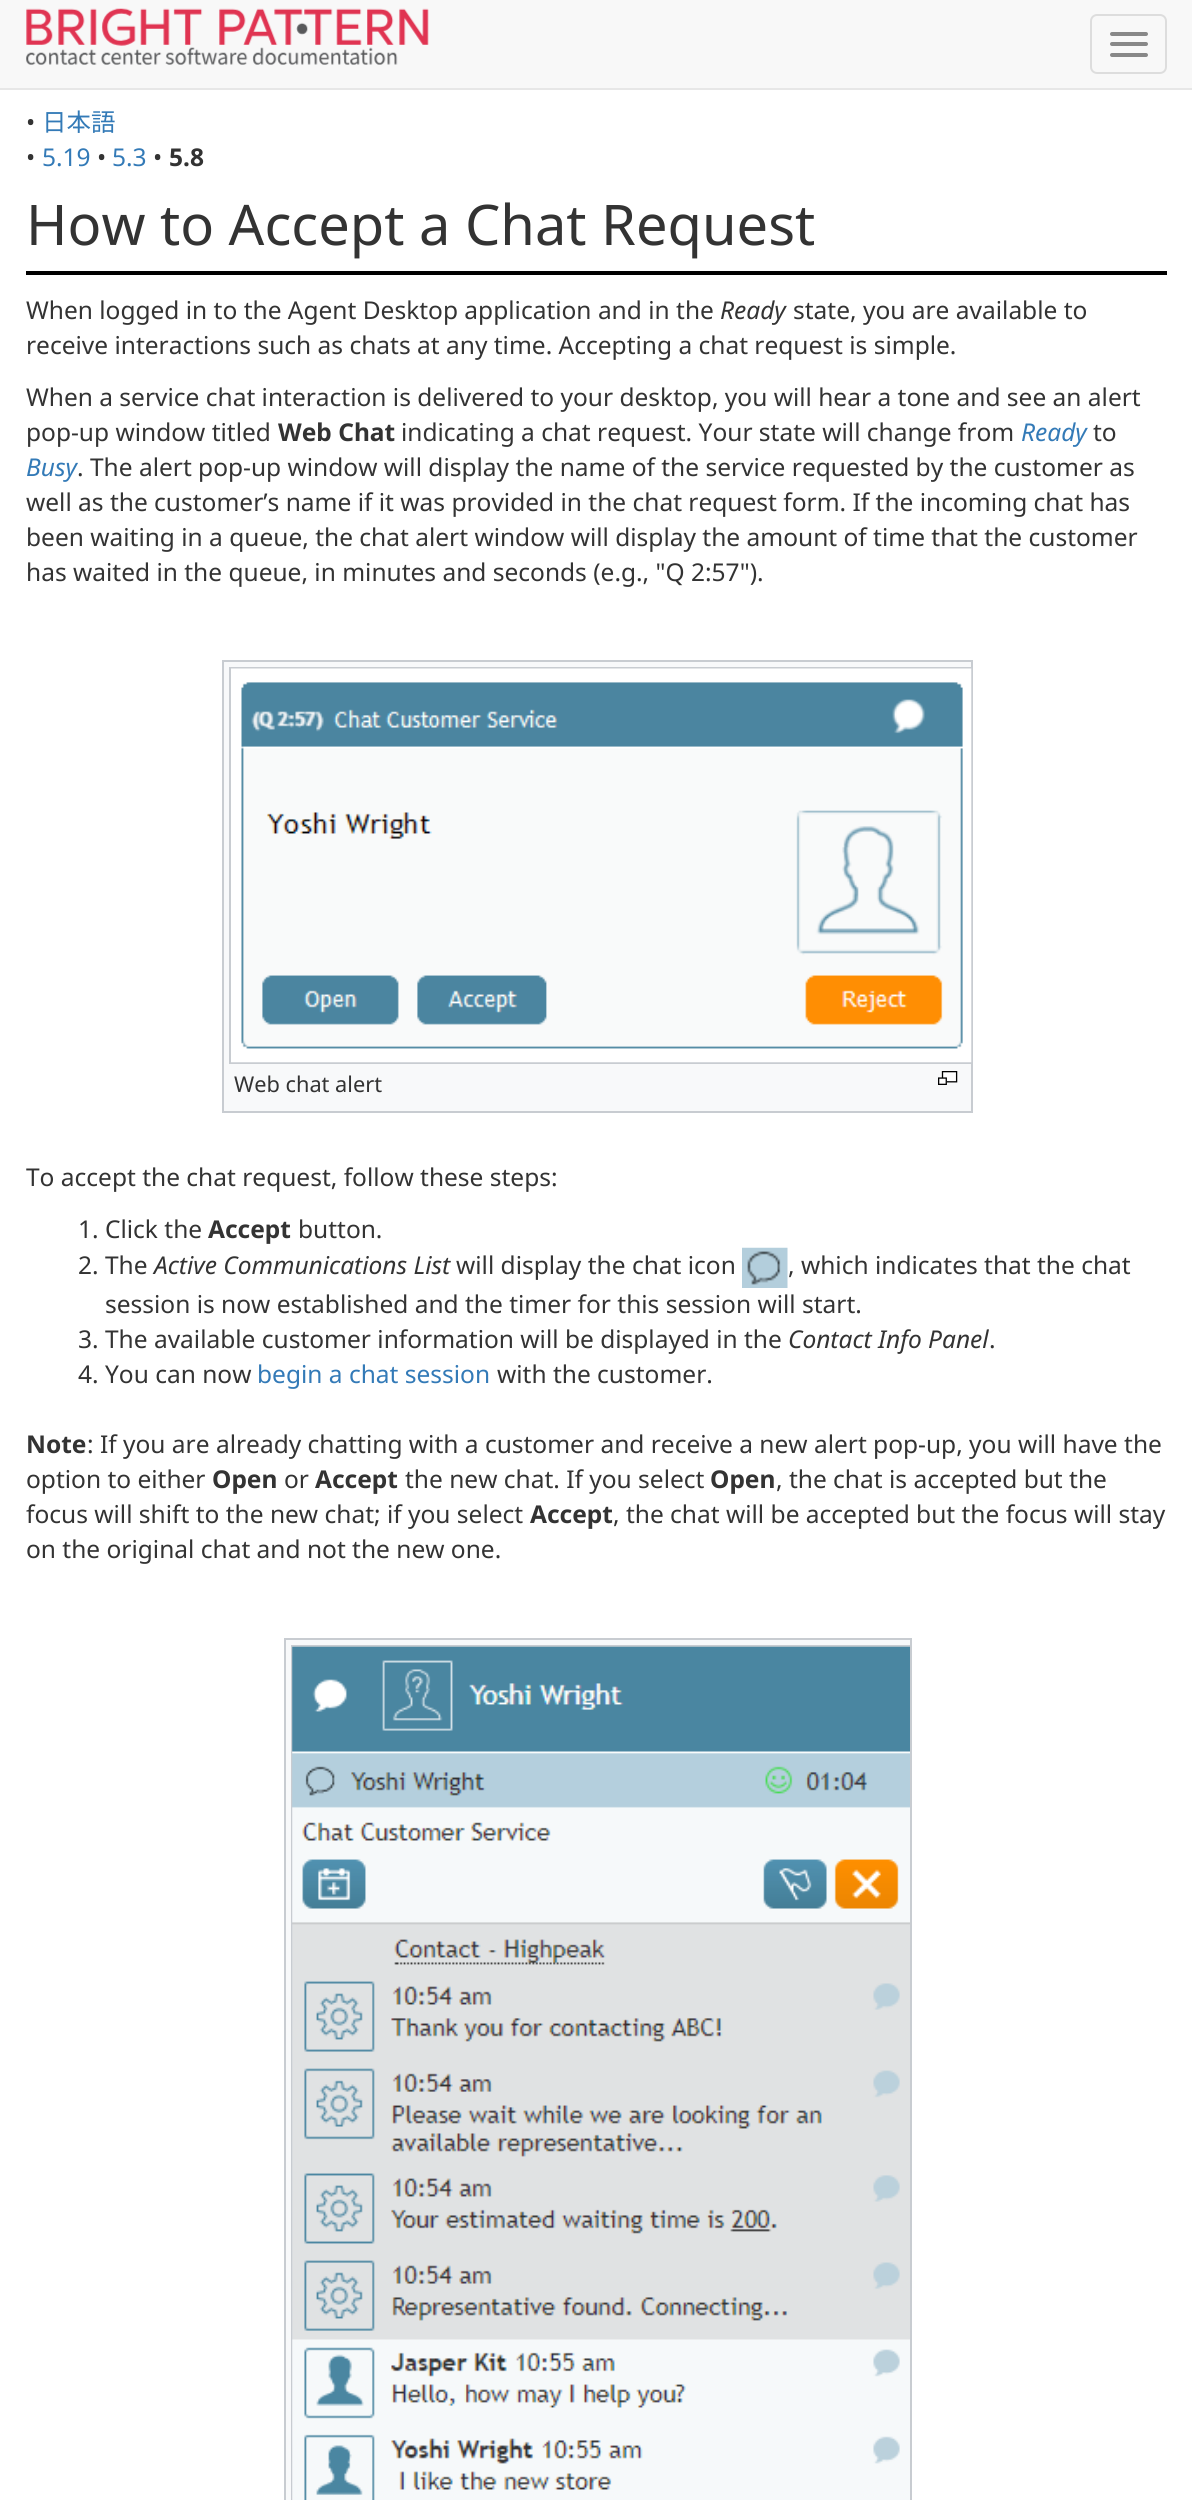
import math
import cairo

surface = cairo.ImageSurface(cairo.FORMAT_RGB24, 1192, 2500)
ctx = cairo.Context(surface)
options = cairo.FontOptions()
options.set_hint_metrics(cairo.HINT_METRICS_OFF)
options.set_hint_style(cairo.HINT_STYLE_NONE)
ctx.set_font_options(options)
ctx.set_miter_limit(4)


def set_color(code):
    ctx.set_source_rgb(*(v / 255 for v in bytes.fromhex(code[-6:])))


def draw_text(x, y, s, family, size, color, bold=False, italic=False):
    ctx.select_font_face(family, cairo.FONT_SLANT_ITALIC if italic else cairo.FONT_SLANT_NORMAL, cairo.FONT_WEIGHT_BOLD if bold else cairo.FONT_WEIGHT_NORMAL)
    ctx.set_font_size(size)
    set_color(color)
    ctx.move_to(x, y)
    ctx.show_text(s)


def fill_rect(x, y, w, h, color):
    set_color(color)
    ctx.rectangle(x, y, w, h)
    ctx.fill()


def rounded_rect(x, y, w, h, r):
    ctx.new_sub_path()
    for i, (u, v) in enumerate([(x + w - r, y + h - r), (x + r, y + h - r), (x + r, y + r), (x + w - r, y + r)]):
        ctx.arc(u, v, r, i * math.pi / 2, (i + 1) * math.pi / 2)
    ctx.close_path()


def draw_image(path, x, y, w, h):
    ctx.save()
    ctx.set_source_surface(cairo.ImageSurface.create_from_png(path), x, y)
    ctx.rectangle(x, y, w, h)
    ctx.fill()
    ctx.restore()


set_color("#ffffff")
ctx.paint()
fill_rect(0, 0, 1192, 88, "#f8f8f8")
fill_rect(0, 88, 1192, 2, "#e7e7e7")
draw_image("assets/img1.png", 26, 8, 403, 57)
rounded_rect(1091, 15, 75, 58, 6)
set_color("#dddddd")
ctx.stroke()
set_color("#888888")
rounded_rect(1110, 32, 38, 4, 2)
ctx.fill()
rounded_rect(1110, 42, 38, 4, 2)
ctx.fill()
rounded_rect(1110, 53, 38, 4, 2)
ctx.fill()
draw_text(26, 131, "•", "Noto Sans", 24.5, "#333333")
draw_text(42, 131, "日本語", "Noto Sans CJK JP", 24.5, "#337ab7")
draw_text(26, 166, "•", "Noto Sans", 24.5, "#333333")
draw_text(42, 166, "5.19", "Noto Sans", 24.5, "#337ab7")
draw_text(97, 166, "•", "Noto Sans", 24.5, "#333333")
draw_text(112, 166, "5.3", "Noto Sans", 24.5, "#337ab7")
draw_text(153, 166, "•", "Noto Sans", 24.5, "#333333")
draw_text(169, 166, "5.8", "Noto Sans", 24.5, "#333333", bold=True)
fill_rect(26, 271, 1141, 4, "#000000")
draw_text(26, 245, "How to Accept a Chat Request", "Noto Sans", 56, "#333333")
draw_text(26, 319, "When logged in to the Agent Desktop application and in the", "Noto Sans", 24.5, "#333333")
draw_text(720, 319, "Ready", "Noto Sans", 24.5, "#333333", italic=True)
draw_text(793, 319, "state, you are available to", "Noto Sans", 24.5, "#333333")
draw_text(26, 354, "receive interactions such as chats at any time. Accepting a chat request is simple.", "Noto Sans", 24.5, "#333333")
draw_text(26, 406, "When a service chat interaction is delivered to your desktop, you will hear a tone and see an alert", "Noto Sans", 24.5, "#333333")
draw_text(26, 441, "pop-up window titled", "Noto Sans", 24.5, "#333333")
draw_text(278, 441, "Web Chat", "Noto Sans", 24.5, "#333333", bold=True)
draw_text(401, 441, "indicating a chat request. Your state will change from", "Noto Sans", 24.5, "#333333")
draw_text(1021, 441, "Ready", "Noto Sans", 24.5, "#337ab7", italic=True)
draw_text(1093, 441, "to", "Noto Sans", 24.5, "#333333")
draw_text(26, 476, "Busy", "Noto Sans", 24.5, "#337ab7", italic=True)
draw_text(77, 476, ". The alert pop-up window will display the name of the service requested by the customer as", "Noto Sans", 24.5, "#333333")
draw_text(26, 511, "well as the customer’s name if it was provided in the chat request form. If the incoming chat has", "Noto Sans", 24.5, "#333333")
draw_text(26, 546, "been waiting in a queue, the chat alert window will display the amount of time that the customer", "Noto Sans", 24.5, "#333333")
draw_text(26, 581, "has waited in the queue, in minutes and seconds (e.g., \"Q 2:57\").", "Noto Sans", 24.5, "#333333")
set_color("#f8f9fa")
ctx.rectangle(223, 661, 749, 451)
ctx.fill_preserve()
set_color("#c8ccd1")
ctx.stroke()
ctx.save()
ctx.rectangle(224, 662, 747, 449)
ctx.clip()
ctx.rectangle(230, 668, 746, 395)
ctx.stroke()
ctx.restore()
draw_image("assets/img2.png", 231, 668, 741, 395)
draw_text(234, 1092, "Web chat alert", "Noto Sans", 21.75, "#333333")
draw_image("assets/img3.png", 938, 1071, 20, 14)
draw_text(26, 1186, "To accept the chat request, follow these steps:", "Noto Sans", 24.5, "#333333")
draw_text(78, 1238, "1. Click the", "Noto Sans", 24.5, "#333333")
draw_text(208, 1238, "Accept", "Noto Sans", 24.5, "#333333", bold=True)
draw_text(298, 1238, "button.", "Noto Sans", 24.5, "#333333")
draw_text(78, 1274, "2. The", "Noto Sans", 24.5, "#333333")
draw_text(154, 1274, "Active Communications List", "Noto Sans", 24.5, "#333333", italic=True)
draw_text(456, 1274, "will display the chat icon", "Noto Sans", 24.5, "#333333")
draw_image("assets/img4.png", 742, 1247, 46, 41)
draw_text(788, 1274, ", which indicates that the chat", "Noto Sans", 24.5, "#333333")
draw_text(105, 1313, "session is now established and the timer for this session will start.", "Noto Sans", 24.5, "#333333")
draw_text(78, 1348, "3. The available customer information will be displayed in the", "Noto Sans", 24.5, "#333333")
draw_text(788, 1348, "Contact Info Panel", "Noto Sans", 24.5, "#333333", italic=True)
draw_text(989, 1348, ".", "Noto Sans", 24.5, "#333333")
draw_text(78, 1383, "4. You can now", "Noto Sans", 24.5, "#333333")
draw_text(257, 1383, "begin a chat session", "Noto Sans", 24.5, "#337ab7")
draw_text(497, 1383, "with the customer.", "Noto Sans", 24.5, "#333333")
draw_text(26, 1453, "Note", "Noto Sans", 24.5, "#333333", bold=True)
draw_text(87, 1453, ": If you are already chatting with a customer and receive a new alert pop-up, you will have the", "Noto Sans", 24.5, "#333333")
draw_text(26, 1488, "option to either", "Noto Sans", 24.5, "#333333")
draw_text(212, 1488, "Open", "Noto Sans", 24.5, "#333333", bold=True)
draw_text(284, 1488, "or", "Noto Sans", 24.5, "#333333")
draw_text(315, 1488, "Accept", "Noto Sans", 24.5, "#333333", bold=True)
draw_text(405, 1488, "the new chat. If you select", "Noto Sans", 24.5, "#333333")
draw_text(710, 1488, "Open", "Noto Sans", 24.5, "#333333", bold=True)
draw_text(776, 1488, ", the chat is accepted but the", "Noto Sans", 24.5, "#333333")
draw_text(26, 1523, "focus will shift to the new chat; if you select", "Noto Sans", 24.5, "#333333")
draw_text(530, 1523, "Accept", "Noto Sans", 24.5, "#333333", bold=True)
draw_text(613, 1523, ", the chat will be accepted but the focus will stay", "Noto Sans", 24.5, "#333333")
draw_text(26, 1558, "on the original chat and not the new one.", "Noto Sans", 24.5, "#333333")
set_color("#f8f9fa")
ctx.rectangle(285, 1639, 626, 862)
ctx.fill_preserve()
set_color("#c8ccd1")
ctx.stroke()
ctx.save()
ctx.rectangle(285, 1640, 625, 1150)
ctx.clip()
ctx.rectangle(292, 1646, 622, 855)
ctx.stroke()
ctx.restore()
draw_image("assets/img5.png", 292, 1646, 618, 854)
surface.write_to_png("output.png")
